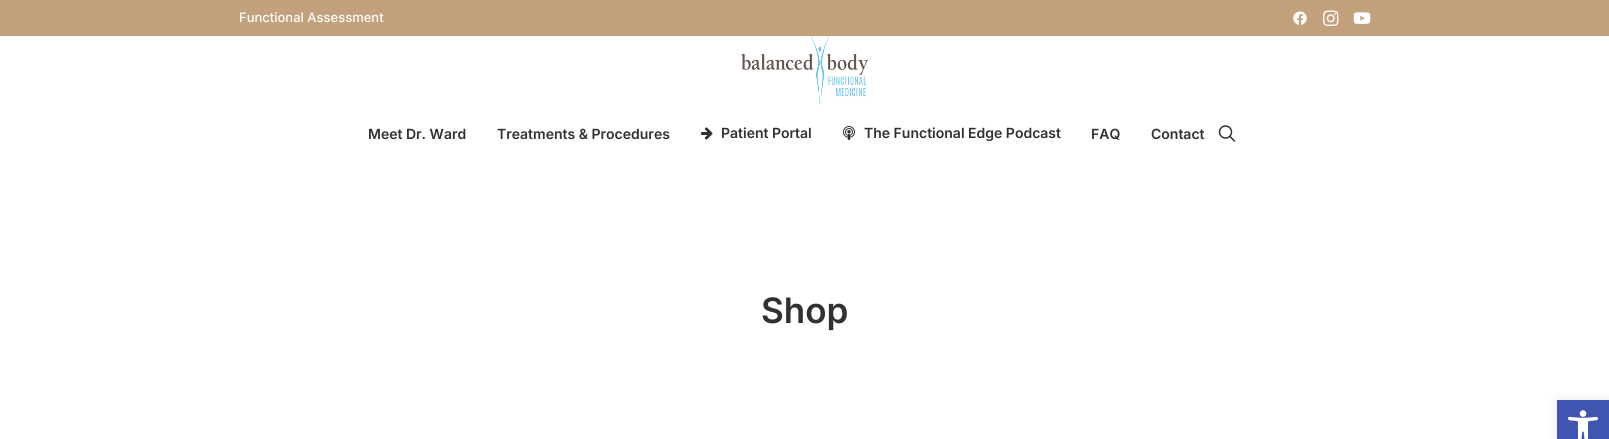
import math
import cairo

surface = cairo.ImageSurface(cairo.FORMAT_RGB24, 1609, 439)
ctx = cairo.Context(surface)
options = cairo.FontOptions()
options.set_hint_metrics(cairo.HINT_METRICS_OFF)
options.set_hint_style(cairo.HINT_STYLE_NONE)
ctx.set_font_options(options)
ctx.set_miter_limit(4)


def set_color(code):
    ctx.set_source_rgb(*(v / 255 for v in bytes.fromhex(code[-6:])))


def draw_text(x, y, s, family, size, color, bold=False, italic=False):
    ctx.select_font_face(family, cairo.FONT_SLANT_ITALIC if italic else cairo.FONT_SLANT_NORMAL, cairo.FONT_WEIGHT_BOLD if bold else cairo.FONT_WEIGHT_NORMAL)
    ctx.set_font_size(size)
    set_color(color)
    ctx.move_to(x, y)
    ctx.show_text(s)


def fill_rect(x, y, w, h, color):
    set_color(color)
    ctx.rectangle(x, y, w, h)
    ctx.fill()


def rounded_rect(x, y, w, h, r):
    ctx.new_sub_path()
    for i, (u, v) in enumerate([(x + w - r, y + h - r), (x + r, y + h - r), (x + r, y + r), (x + w - r, y + r)]):
        ctx.arc(u, v, r, i * math.pi / 2, (i + 1) * math.pi / 2)
    ctx.close_path()


def draw_shadow(x, y, w, h, r, blur, alpha):
    ctx.push_group_with_content(cairo.CONTENT_ALPHA)
    ctx.set_operator(cairo.OPERATOR_SOURCE)
    for i in range(15, -16, -2):
        e = blur * i / 6
        if min(w, h) + 2 * e > 0:
            ctx.set_source_rgba(0, 0, 0, alpha * math.erfc((i - 1) / 8.5) / 2)
            rounded_rect(x - e, y - e, w + 2 * e, h + 2 * e, max(0, min(r + e + blur * .6, min(w, h) / 2 + e)))
            ctx.fill()
    ctx.mask(ctx.pop_group())


def draw_image(path, x, y, w, h):
    ctx.save()
    ctx.set_source_surface(cairo.ImageSurface.create_from_png(path), x, y)
    ctx.rectangle(x, y, w, h)
    ctx.fill()
    ctx.restore()


set_color("#ffffff")
ctx.paint()
fill_rect(0, 0, 1609, 36, "#c3a17d")
draw_text(239, 22, "Functional Assessment", "Inter Medium", 13, "#ffffff")
draw_image("assets/img1.png", 1293, 11, 14, 14)
draw_image("assets/img2.png", 1323, 10, 16, 16)
draw_image("assets/img3.png", 1353, 12, 18, 12)
draw_image("assets/img4.png", 741, 36, 127, 70)
draw_text(368, 139, "Meet Dr. Ward", "Inter SemiBold", 14, "#303133")
draw_text(497, 139, "Treatments & Procedures", "Inter SemiBold", 14, "#303133")
draw_image("assets/img5.png", 701, 127, 12, 13)
draw_text(721, 138, "Patient Portal", "Inter SemiBold", 14, "#303133")
draw_image("assets/img6.png", 843, 126, 12, 14)
draw_text(864, 138, "The Functional Edge Podcast", "Inter SemiBold", 14, "#303133")
draw_text(1091, 139, "FAQ", "Inter SemiBold", 14, "#303133")
draw_text(1151, 139, "Contact", "Inter SemiBold", 14, "#303133")
draw_image("assets/img7.png", 1218, 125, 18, 17)
draw_text(761, 323, "Shop", "Inter SemiBold", 35, "#303133")
set_color("#000000")
draw_shadow(1557, 400, 52, 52, 0, 5, 0.1)
fill_rect(1557, 400, 52, 39, "#4054b2")
draw_image("assets/img8.png", 1568, 410, 30, 29)
surface.write_to_png("output.png")
